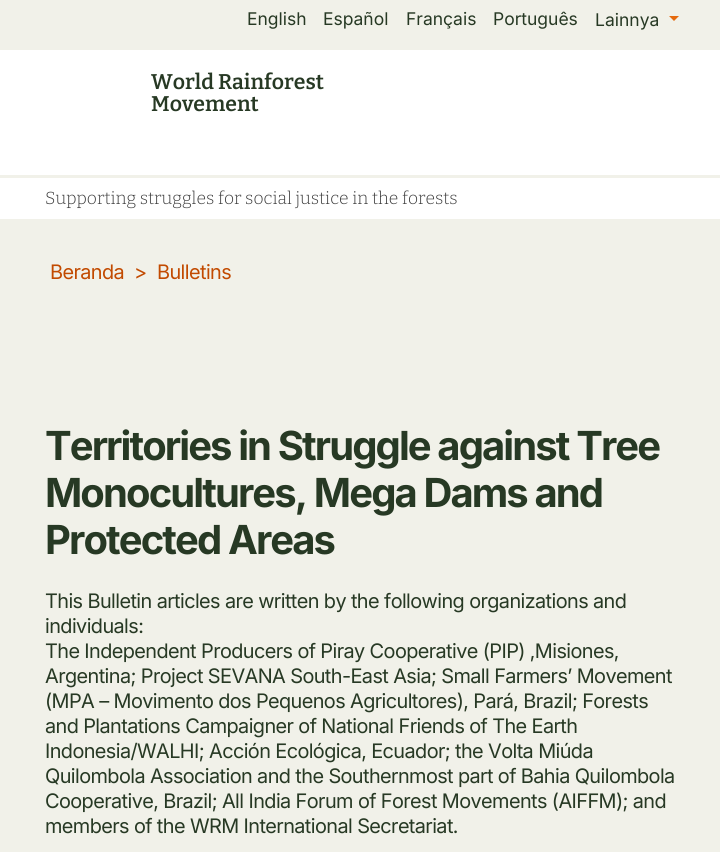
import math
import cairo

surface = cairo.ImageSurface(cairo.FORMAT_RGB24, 720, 852)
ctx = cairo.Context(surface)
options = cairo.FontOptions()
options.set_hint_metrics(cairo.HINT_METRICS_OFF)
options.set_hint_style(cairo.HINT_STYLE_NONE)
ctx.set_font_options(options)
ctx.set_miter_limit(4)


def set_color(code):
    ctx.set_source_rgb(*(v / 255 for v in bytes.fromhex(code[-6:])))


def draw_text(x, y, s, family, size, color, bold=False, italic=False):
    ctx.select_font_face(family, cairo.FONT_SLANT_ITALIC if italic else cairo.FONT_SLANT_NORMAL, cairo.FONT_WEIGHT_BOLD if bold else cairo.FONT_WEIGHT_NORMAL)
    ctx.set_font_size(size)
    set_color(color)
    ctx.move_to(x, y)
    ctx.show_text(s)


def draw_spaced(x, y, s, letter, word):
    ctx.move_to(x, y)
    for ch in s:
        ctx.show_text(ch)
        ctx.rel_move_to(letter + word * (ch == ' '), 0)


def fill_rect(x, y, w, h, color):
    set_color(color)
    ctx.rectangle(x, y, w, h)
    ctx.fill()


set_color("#ffffff")
ctx.paint()
fill_rect(0, 0, 720, 50, "#f1f1e9")
draw_text(247, 25, "English", "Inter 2", 17.5, "#273924")
draw_text(323, 25, "Español", "Inter 2", 17.5, "#273924")
draw_text(406, 25, "Français", "Inter 2", 17.5, "#273924")
draw_text(493, 25, "Português", "Inter 2", 17.5, "#273924")
draw_text(595, 26, "Lainnya", "Inter 2", 17.5, "#273924")
set_color("#e56a0e")
ctx.new_path()
ctx.move_to(669, 16)
ctx.line_to(679, 16)
ctx.line_to(674, 21)
ctx.close_path()
ctx.fill()
draw_text(151, 89, "World Rainforest", "Bitter SemiBold", 21.25, "#273924")
draw_text(151, 111, "Movement", "Bitter SemiBold", 21.25, "#273924")
fill_rect(0, 175, 720, 3, "#f1f1e9")
draw_text(45, 204, "Supporting struggles for social justice in the forests", "Bitter Light", 17.5, "#3b3b3b")
fill_rect(0, 219, 720, 633, "#f1f1e9")
ctx.select_font_face("Inter")
ctx.set_font_size(20)
set_color("#c24a00")
draw_spaced(50, 279, "Beranda", -0.58, 0)
draw_spaced(134, 279, ">", -0.58, 0)
draw_spaced(157, 279, "Bulletins", -0.58, 0)
ctx.select_font_face("Inter", cairo.FONT_SLANT_NORMAL, cairo.FONT_WEIGHT_BOLD)
ctx.set_font_size(40)
set_color("#273924")
draw_spaced(45, 460, "Territories in Struggle against Tree", -1.9, 0)
draw_spaced(45, 507, "Monocultures, Mega Dams and", -1.9, 0)
draw_spaced(45, 554, "Protected Areas", -1.9, 0)
ctx.select_font_face("Inter")
ctx.set_font_size(20)
draw_spaced(45, 608, "This Bulletin articles are written by the following organizations and", -0.58, 0)
draw_spaced(45, 633, "individuals:", -0.58, 0)
draw_spaced(45, 658, "The Independent Producers of Piray Cooperative (PIP) ,Misiones,", -0.58, 0)
draw_spaced(45, 683, "Argentina; Project SEVANA South-East Asia; Small Farmers’ Movement", -0.58, 0)
draw_spaced(45, 708, "(MPA – Movimento dos Pequenos Agricultores), Pará, Brazil; Forests", -0.58, 0)
draw_spaced(45, 733, "and Plantations Campaigner of National Friends of The Earth", -0.58, 0)
draw_spaced(45, 758, "Indonesia/WALHI; Acción Ecológica, Ecuador; the Volta Miúda", -0.58, 0)
draw_spaced(45, 783, "Quilombola Association and the Southernmost part of Bahia Quilombola", -0.58, 0)
draw_spaced(45, 808, "Cooperative, Brazil; All India Forum of Forest Movements (AIFFM); and", -0.58, 0)
draw_spaced(45, 833, "members of the WRM International Secretariat.", -0.58, 0)
surface.write_to_png("output.png")
